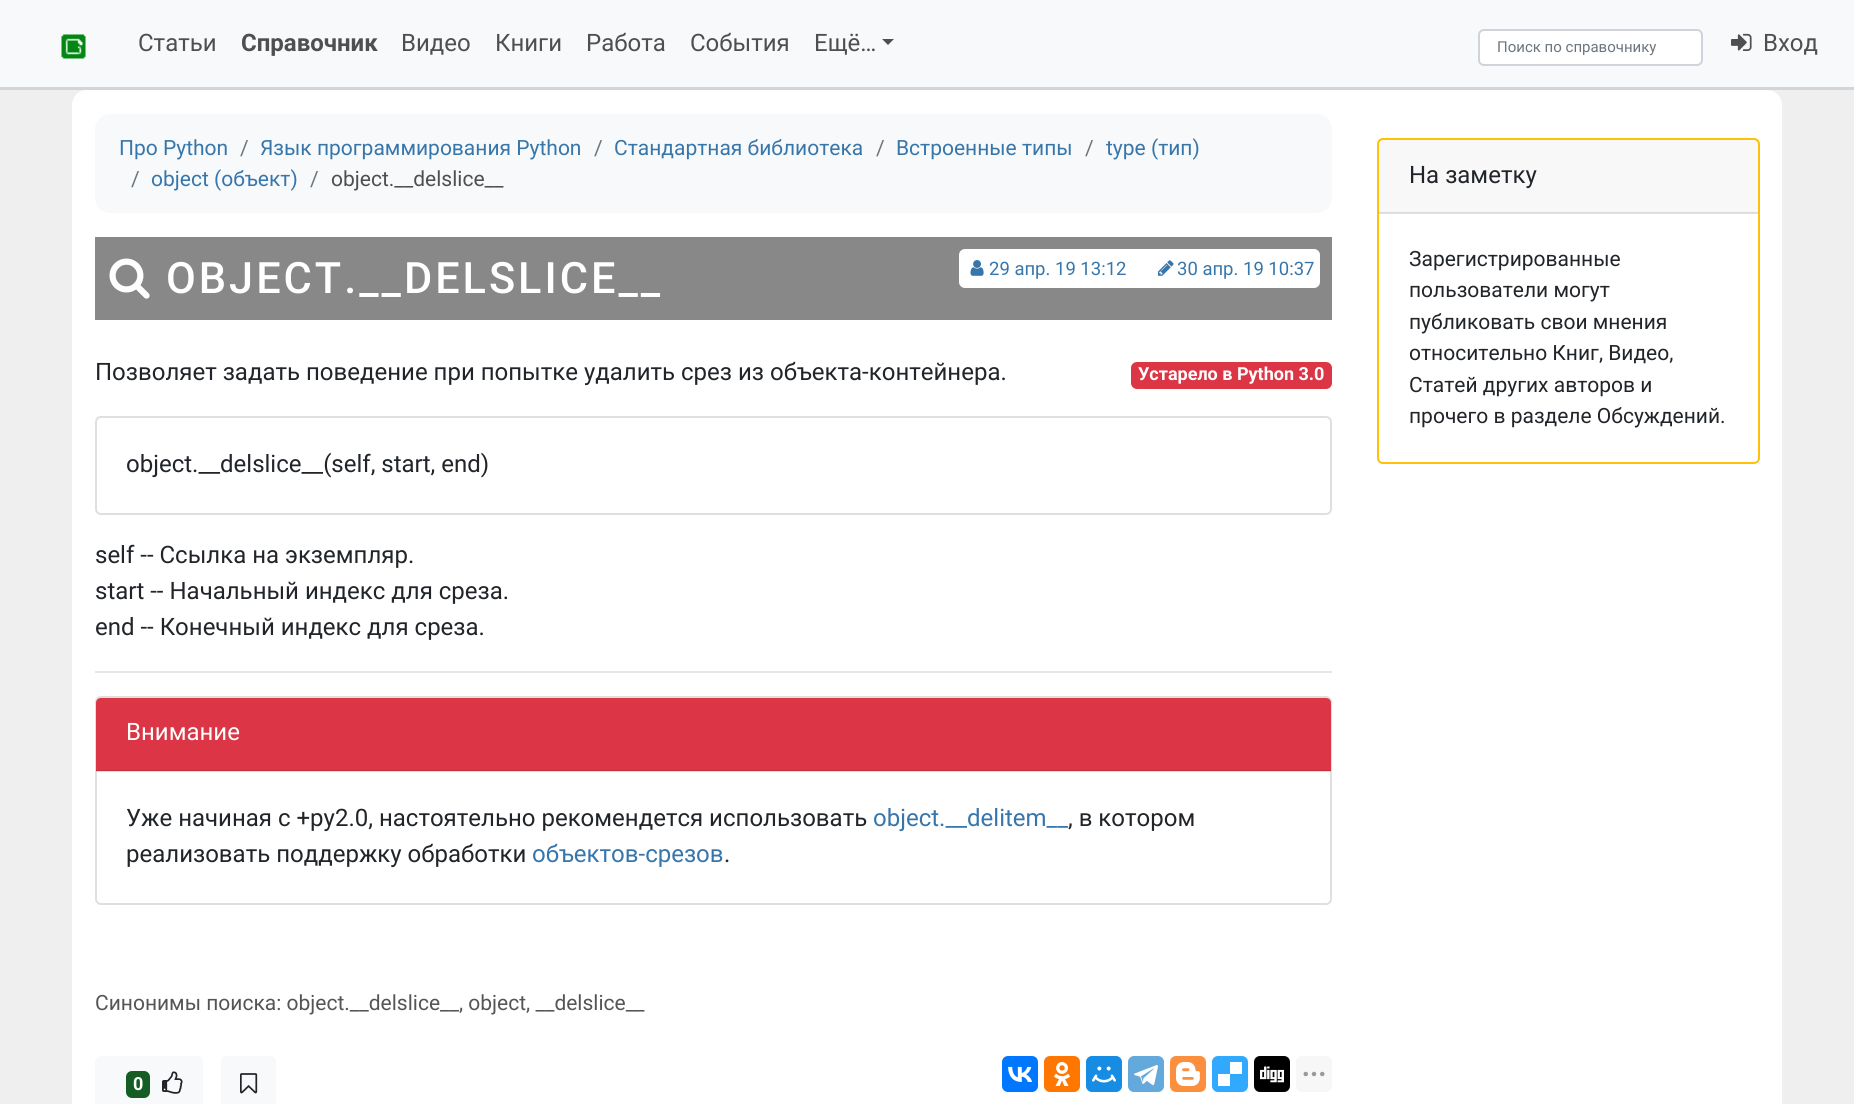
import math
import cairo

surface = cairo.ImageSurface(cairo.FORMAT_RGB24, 1854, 1104)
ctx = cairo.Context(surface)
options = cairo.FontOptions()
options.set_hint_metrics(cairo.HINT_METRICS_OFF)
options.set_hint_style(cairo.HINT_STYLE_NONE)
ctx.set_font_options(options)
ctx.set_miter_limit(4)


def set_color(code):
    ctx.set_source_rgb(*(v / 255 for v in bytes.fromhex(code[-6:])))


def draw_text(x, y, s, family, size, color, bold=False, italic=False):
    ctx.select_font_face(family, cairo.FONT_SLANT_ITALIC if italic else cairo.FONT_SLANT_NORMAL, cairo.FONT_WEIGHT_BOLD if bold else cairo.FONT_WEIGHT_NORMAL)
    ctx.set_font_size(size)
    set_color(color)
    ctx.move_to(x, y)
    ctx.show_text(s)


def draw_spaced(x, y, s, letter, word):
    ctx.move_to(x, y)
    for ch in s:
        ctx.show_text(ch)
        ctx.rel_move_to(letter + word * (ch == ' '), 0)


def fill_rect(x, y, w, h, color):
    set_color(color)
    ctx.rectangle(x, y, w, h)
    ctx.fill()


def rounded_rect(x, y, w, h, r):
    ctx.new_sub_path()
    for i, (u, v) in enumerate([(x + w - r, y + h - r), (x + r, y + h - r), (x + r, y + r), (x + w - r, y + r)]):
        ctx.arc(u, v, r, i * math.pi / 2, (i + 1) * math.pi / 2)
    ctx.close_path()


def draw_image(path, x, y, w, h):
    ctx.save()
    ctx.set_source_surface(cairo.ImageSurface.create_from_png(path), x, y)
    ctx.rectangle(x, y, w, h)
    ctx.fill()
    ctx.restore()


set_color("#efefef")
ctx.paint()
fill_rect(0, 0, 1854, 87, "#f8f9fa")
fill_rect(0, 87, 1854, 3, "#d4d4d4")
draw_image("assets/img1.png", 61, 34, 25, 25)
draw_text(138, 51, "Статьи", "Roboto", 24, "#4f4f4f")
draw_text(241, 51, "Справочник", "Roboto", 24, "#4f4f4f", bold=True)
draw_text(401, 51, "Видео", "Roboto", 24, "#4f4f4f")
draw_text(495, 51, "Книги", "Roboto", 24, "#4f4f4f")
draw_text(586, 51, "Работа", "Roboto", 24, "#4f4f4f")
draw_text(690, 51, "События", "Roboto", 24, "#4f4f4f")
draw_text(814, 51, "Ещё…", "Roboto", 24, "#4f4f4f")
ctx.new_path()
ctx.move_to(882, 39)
ctx.line_to(894, 39)
ctx.line_to(888, 45)
ctx.close_path()
ctx.fill()
set_color("#ffffff")
rounded_rect(1479, 30, 223, 35, 5)
ctx.fill_preserve()
set_color("#ced4da")
ctx.stroke()
draw_text(1497, 52, "Поиск по справочнику", "Roboto", 15, "#6c757d")
draw_image("assets/img2.png", 1731, 33, 21, 18)
draw_text(1763, 51, "Вход", "Roboto", 24, "#4f4f4f")
set_color("#ffffff")
rounded_rect(72, 90, 1710, 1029, 15)
ctx.fill()
set_color("#f8f9fa")
rounded_rect(95, 114, 1237, 99, 15)
ctx.fill()
draw_text(119, 155, "Про Python", "Roboto", 21, "#3776ab")
draw_text(240, 155, "/", "Roboto", 21, "#6c757d")
draw_text(260, 155, "Язык программирования Python", "Roboto", 21, "#3776ab")
draw_text(594, 155, "/", "Roboto", 21, "#6c757d")
draw_text(614, 155, "Стандартная библиотека", "Roboto", 21, "#3776ab")
draw_text(876, 155, "/", "Roboto", 21, "#6c757d")
draw_text(896, 155, "Встроенные типы", "Roboto", 21, "#3776ab")
draw_text(1085, 155, "/", "Roboto", 21, "#6c757d")
draw_text(1106, 155, "type (тип)", "Roboto", 21, "#3776ab")
draw_text(131, 186, "/", "Roboto", 21, "#6c757d")
draw_text(151, 186, "object (объект)", "Roboto", 21, "#3776ab")
draw_text(310, 186, "/", "Roboto", 21, "#6c757d")
draw_text(331, 186, "object.__delslice__", "Roboto", 21, "#4f4f4f")
fill_rect(95, 237, 1237, 83, "#888888")
draw_image("assets/img3.png", 109, 258, 41, 41)
ctx.select_font_face("Roboto Medium")
ctx.set_font_size(43.25)
set_color("#ffffff")
draw_spaced(166, 293, "OBJECT.__DELSLICE__", 3, 0)
rounded_rect(959, 249, 361, 39, 6)
ctx.fill()
draw_image("assets/img4.png", 970, 260, 14, 16)
draw_text(989, 275, "29 апр. 19 13:12", "Roboto", 18.5, "#3776ab")
draw_image("assets/img5.png", 1158, 260, 16, 16)
draw_text(1177, 275, "30 апр. 19 10:37", "Roboto", 18.5, "#3776ab")
draw_text(95, 380, "Позволяет задать поведение при попытке удалить срез из объекта-контейнера.", "Roboto", 24, "#212529")
set_color("#dc3545")
rounded_rect(1131, 362, 201, 27, 6)
ctx.fill()
draw_text(1138, 380, "Устарело в Python 3.0", "Roboto", 18, "#ffffff", bold=True)
rounded_rect(96, 417, 1235, 97, 5)
set_color("#dfdfdf")
ctx.stroke()
draw_text(126, 472, "object.__delslice__(self, start, end)", "Roboto", 24, "#212529")
draw_text(95, 563, "self -- Ссылка на экземпляр.", "Roboto", 24, "#212529")
draw_text(95, 599, "start -- Начальный индекс для среза.", "Roboto", 24, "#212529")
draw_text(95, 635, "end -- Конечный индекс для среза.", "Roboto", 24, "#212529")
fill_rect(95, 671, 1237, 2, "#e6e6e6")
rounded_rect(96, 697, 1235, 207, 5)
set_color("#dfdfdf")
ctx.stroke()
set_color("#dc3545")
ctx.new_path()
ctx.move_to(101, 698)
ctx.line_to(1326, 698)
ctx.curve_to(1329, 698, 1331, 700, 1331, 703)
ctx.line_to(1331, 771)
ctx.line_to(96, 771)
ctx.line_to(96, 703)
ctx.curve_to(96, 700, 98, 698, 101, 698)
ctx.close_path()
ctx.fill()
ctx.set_source_rgba(0, 0, 0, 0.12)
ctx.rectangle(96, 770, 1235, 2)
ctx.fill()
draw_text(126, 740, "Внимание", "Roboto", 24, "#ffffff")
draw_text(126, 826, "Уже начиная с +py2.0, настоятельно рекомендется использовать", "Roboto", 24, "#212529")
draw_text(873, 826, "object.__delitem__", "Roboto", 24, "#3776ab")
draw_text(1068, 826, ", в котором", "Roboto", 24, "#212529")
draw_text(126, 862, "реализовать поддержку обработки", "Roboto", 24, "#212529")
draw_text(532, 862, "объектов-срезов", "Roboto", 24, "#3776ab")
draw_text(724, 862, ".", "Roboto", 24, "#212529")
draw_text(95, 1010, "Синонимы поиска: object.__delslice__, object, __delslice__", "Roboto", 21, "#555555")
set_color("#f8f9fa")
rounded_rect(95, 1056, 108, 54, 6)
ctx.fill()
set_color("#155d25")
rounded_rect(126, 1071, 24, 27, 6)
ctx.fill()
draw_text(133, 1090, "0", "Roboto", 18, "#ffffff", bold=True)
draw_image("assets/img6.png", 162, 1071, 21, 23)
set_color("#f8f9fa")
rounded_rect(221, 1056, 55, 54, 6)
ctx.fill()
draw_image("assets/img7.png", 240, 1073, 18, 21)
set_color("#0077ff")
rounded_rect(1002, 1056, 36, 36, 6)
ctx.fill()
draw_image("assets/img8.png", 1008, 1066, 24, 16)
set_color("#ff7700")
rounded_rect(1044, 1056, 36, 36, 6)
ctx.fill()
draw_image("assets/img9.png", 1054, 1062, 17, 24)
set_color("#168de2")
rounded_rect(1086, 1056, 36, 36, 6)
ctx.fill()
draw_image("assets/img10.png", 1092, 1066, 24, 17)
set_color("#64a9dc")
rounded_rect(1128, 1056, 36, 36, 6)
ctx.fill()
draw_image("assets/img11.png", 1134, 1065, 24, 21)
set_color("#fb8f3d")
rounded_rect(1170, 1056, 36, 36, 6)
ctx.fill()
draw_image("assets/img12.png", 1176, 1062, 24, 24)
set_color("#31a9ff")
rounded_rect(1212, 1056, 36, 36, 6)
ctx.fill()
set_color("#ffffff")
ctx.set_fill_rule(cairo.FILL_RULE_EVEN_ODD)
ctx.new_path()
ctx.move_to(1218, 1074)
ctx.line_to(1230, 1074)
ctx.line_to(1230, 1086)
ctx.line_to(1218, 1086)
ctx.close_path()
ctx.move_to(1230, 1062)
ctx.line_to(1242, 1062)
ctx.line_to(1242, 1074)
ctx.line_to(1230, 1074)
ctx.close_path()
ctx.fill()
set_color("#000000")
rounded_rect(1254, 1056, 36, 36, 6)
ctx.fill()
draw_image("assets/img13.png", 1260, 1066, 24, 17)
set_color("#f7f7f7")
rounded_rect(1296, 1056, 36, 36, 6)
ctx.fill()
draw_image("assets/img14.png", 1303, 1071, 22, 6)
rounded_rect(1378, 139, 381, 324, 5)
set_color("#ffc107")
ctx.stroke()
ctx.set_source_rgba(0, 0, 0, 0.03)
ctx.rectangle(1379, 140, 379, 73)
ctx.fill()
ctx.set_source_rgba(0, 0, 0, 0.12)
ctx.rectangle(1379, 212, 379, 2)
ctx.fill()
draw_text(1409, 183, "На заметку", "Roboto", 24, "#212529")
draw_text(1409, 266, "Зарегистрированные", "Roboto", 21, "#212529")
draw_text(1409, 297, "пользователи могут", "Roboto", 21, "#212529")
draw_text(1409, 329, "публиковать свои мнения", "Roboto", 21, "#212529")
draw_text(1409, 360, "относительно Книг, Видео,", "Roboto", 21, "#212529")
draw_text(1409, 392, "Статей других авторов и", "Roboto", 21, "#212529")
draw_text(1409, 423, "прочего в разделе Обсуждений.", "Roboto", 21, "#212529")
surface.write_to_png("output.png")
